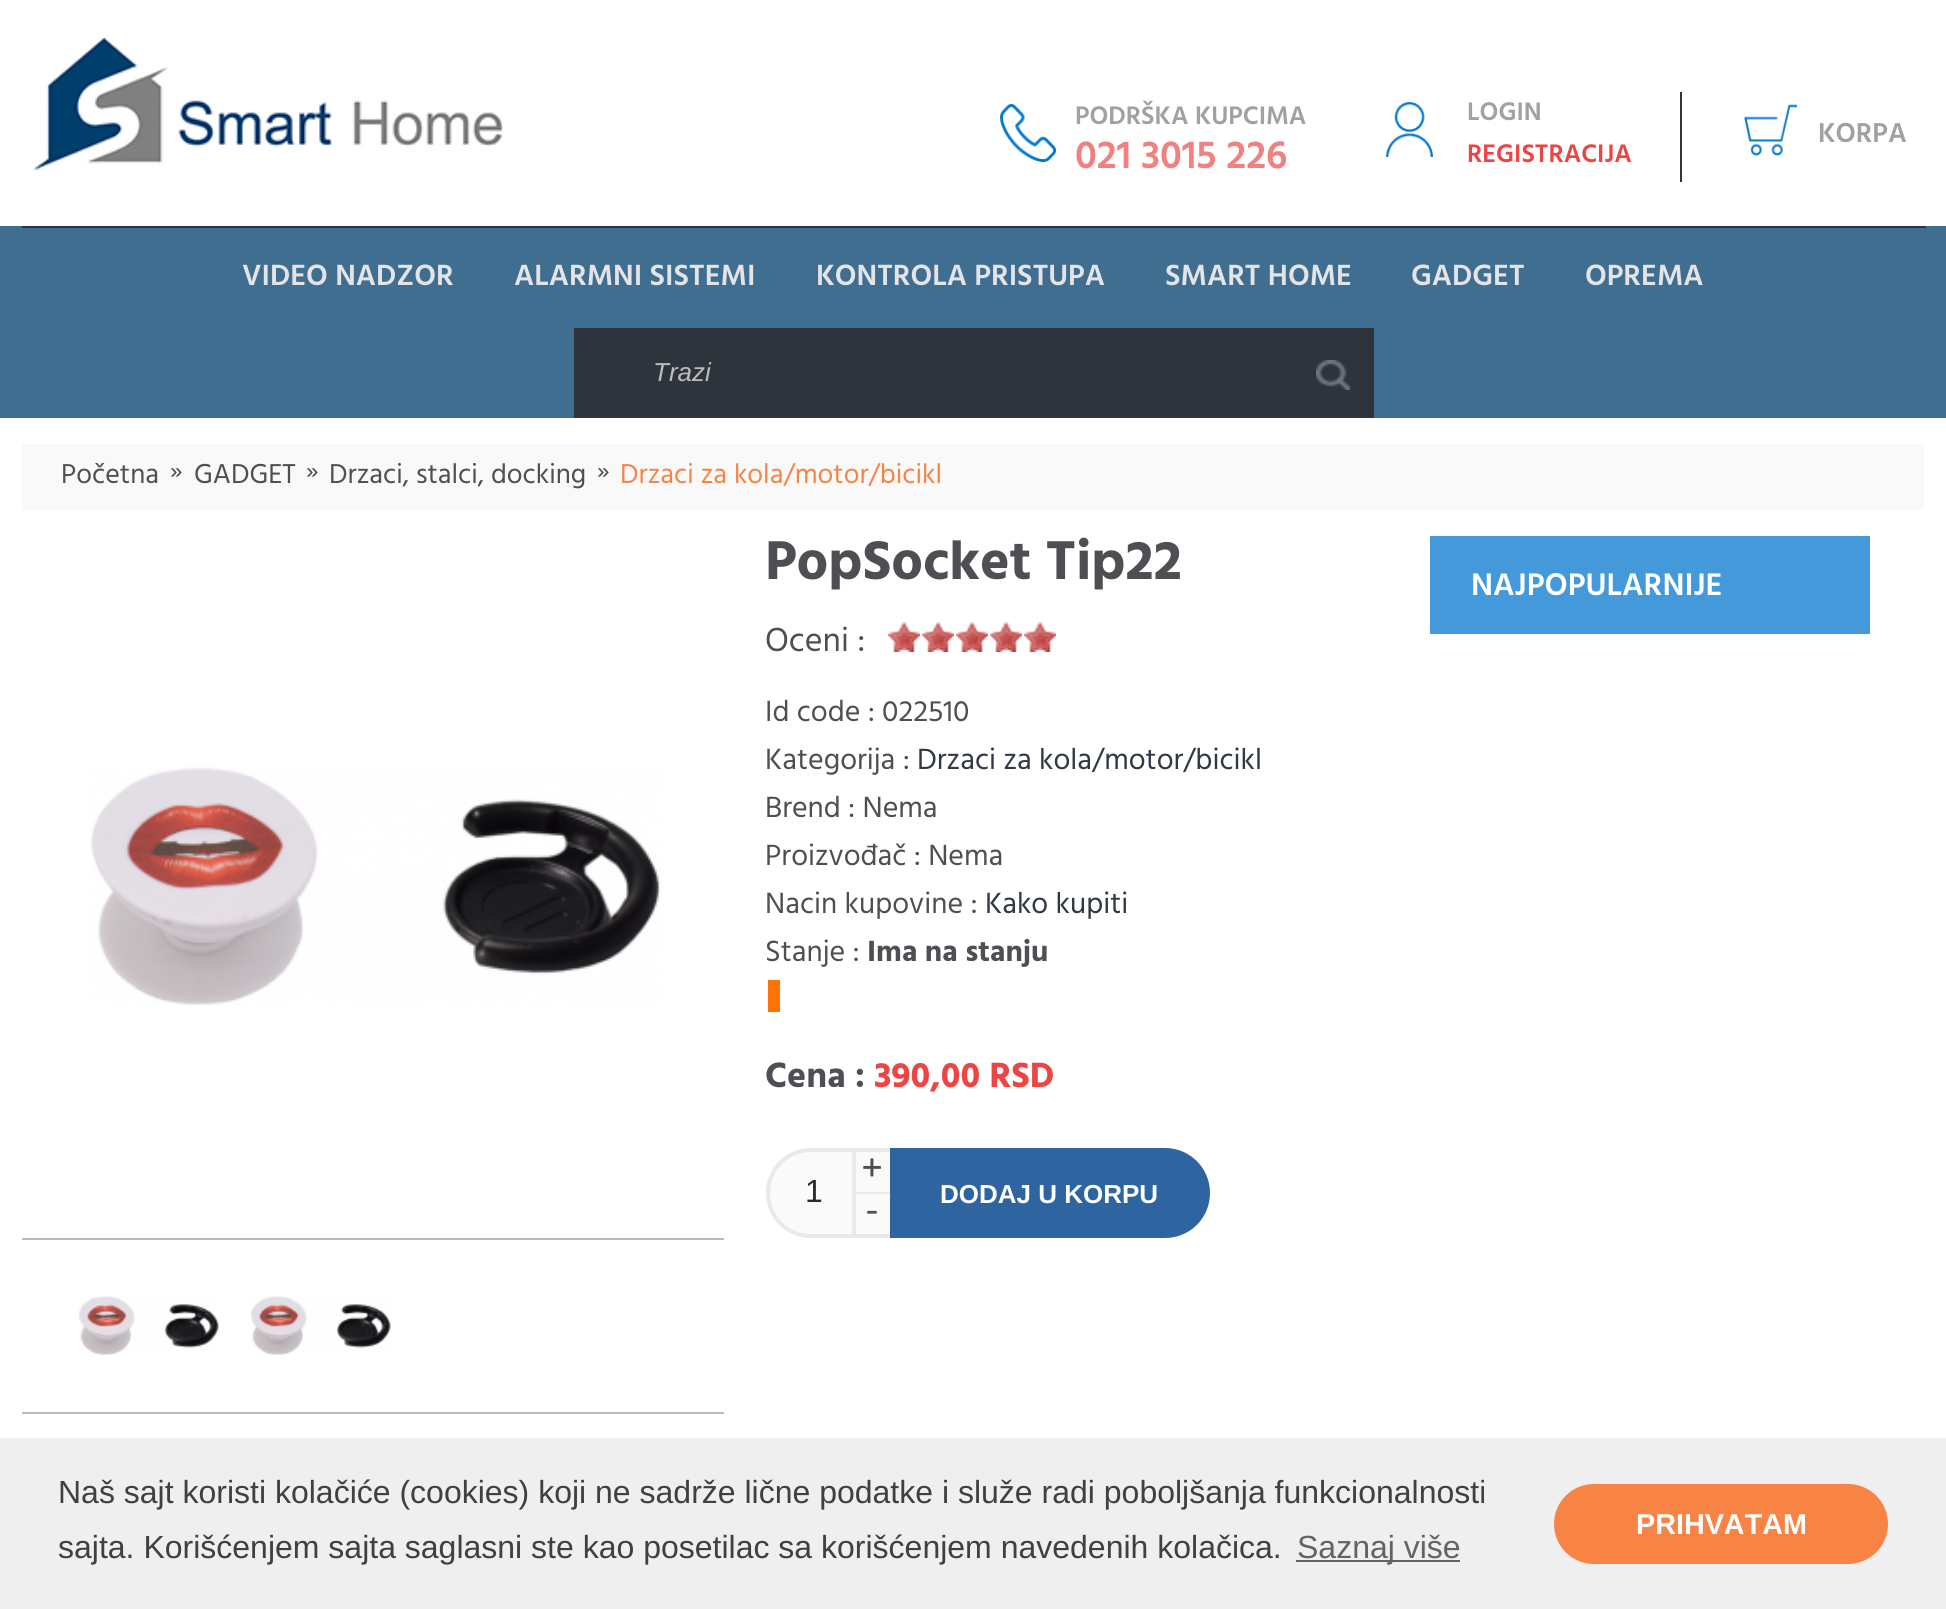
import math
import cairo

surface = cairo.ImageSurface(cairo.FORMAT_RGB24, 1946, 1609)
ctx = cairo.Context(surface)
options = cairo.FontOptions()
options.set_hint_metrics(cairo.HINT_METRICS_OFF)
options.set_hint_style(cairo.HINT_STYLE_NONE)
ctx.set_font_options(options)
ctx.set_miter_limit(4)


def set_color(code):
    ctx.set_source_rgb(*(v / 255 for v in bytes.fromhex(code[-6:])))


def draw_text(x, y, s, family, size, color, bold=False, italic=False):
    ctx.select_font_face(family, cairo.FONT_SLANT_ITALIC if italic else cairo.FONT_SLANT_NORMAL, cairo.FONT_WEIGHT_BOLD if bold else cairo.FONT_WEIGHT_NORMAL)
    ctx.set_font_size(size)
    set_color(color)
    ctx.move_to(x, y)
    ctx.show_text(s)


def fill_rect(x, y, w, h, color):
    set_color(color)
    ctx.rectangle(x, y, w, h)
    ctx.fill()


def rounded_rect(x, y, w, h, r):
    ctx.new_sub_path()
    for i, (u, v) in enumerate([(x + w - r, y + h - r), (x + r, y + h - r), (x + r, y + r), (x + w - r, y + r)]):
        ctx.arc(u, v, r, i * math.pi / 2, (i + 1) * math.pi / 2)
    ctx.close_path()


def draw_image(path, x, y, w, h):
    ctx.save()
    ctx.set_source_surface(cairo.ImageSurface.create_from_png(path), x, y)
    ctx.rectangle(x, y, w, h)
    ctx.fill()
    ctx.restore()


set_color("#ffffff")
ctx.paint()
draw_image("assets/img1.png", 33, 36, 471, 135)
draw_image("assets/img2.png", 1000, 104, 56, 58)
draw_text(1075, 124, "PODRŠKA KUPCIMA", "Hind SemiBold", 26, "#a2a0a0")
draw_text(1075, 168, "021 3015 226", "Hind SemiBold", 40, "#f28080")
draw_image("assets/img3.png", 1386, 102, 47, 55)
draw_text(1467, 120, "LOGIN", "Hind SemiBold", 26, "#a2a0a0")
draw_text(1467, 162, "REGISTRACIJA", "Hind SemiBold", 26, "#ed4444")
fill_rect(1680, 92, 2, 90, "#2e343b")
draw_image("assets/img4.png", 1744, 104, 53, 52)
draw_text(1818, 142, "KORPA", "Hind SemiBold", 28, "#a2a0a0")
fill_rect(0, 226, 1946, 192, "#406e91")
fill_rect(22, 226, 1904, 2, "#2e343b")
draw_text(242, 285, "VIDEO NADZOR", "Hind SemiBold", 30, "#e4e4e6")
draw_text(514, 285, "ALARMNI SISTEMI", "Hind SemiBold", 30, "#e4e4e6")
draw_text(816, 285, "KONTROLA PRISTUPA", "Hind SemiBold", 30, "#e4e4e6")
draw_text(1165, 285, "SMART HOME", "Hind SemiBold", 30, "#e4e4e6")
draw_text(1411, 285, "GADGET", "Hind SemiBold", 30, "#e4e4e6")
draw_text(1585, 285, "OPREMA", "Hind SemiBold", 30, "#e4e4e6")
fill_rect(574, 328, 800, 90, "#2e343b")
draw_text(653, 381, "Trazi", "Liberation Sans", 26, "#bebcbc", italic=True)
draw_image("assets/img5.png", 1316, 360, 34, 30)
fill_rect(22, 444, 1902, 66, "#f9f9f9")
draw_text(61, 483, "Početna", "Hind", 28, "#4e4f53")
draw_text(170, 479, "»", "Hind", 26, "#4e4f53")
draw_text(194, 483, "GADGET", "Hind", 28, "#4e4f53")
draw_text(306, 479, "»", "Hind", 26, "#4e4f53")
draw_text(329, 483, "Drzaci, stalci, docking", "Hind", 28, "#4e4f53")
draw_text(597, 479, "»", "Hind", 26, "#4e4f53")
draw_text(620, 483, "Drzaci za kola/motor/bicikl", "Hind", 28, "#f78444")
draw_image("assets/img6.png", 91, 767, 570, 238)
fill_rect(22, 1238, 702, 2, "#bababa")
draw_image("assets/img7.png", 79, 1296, 140, 59)
draw_image("assets/img7.png", 251, 1296, 140, 59)
fill_rect(22, 1412, 702, 2, "#bababa")
draw_text(765, 579, "PopSocket Tip22", "Hind", 56, "#4e4f53", bold=True)
draw_text(765, 651, "Oceni :", "Hind", 34, "#4e4f53")
draw_image("assets/img8.png", 888, 622, 32, 30)
draw_image("assets/img8.png", 922, 622, 32, 30)
draw_image("assets/img8.png", 956, 622, 32, 30)
draw_image("assets/img8.png", 990, 622, 32, 30)
draw_image("assets/img8.png", 1024, 622, 32, 30)
draw_text(765, 721, "Id code : 022510", "Hind", 30, "#4e4f53")
draw_text(765, 769, "Kategorija :", "Hind", 30, "#4e4f53")
draw_text(917, 769, "Drzaci za kola/motor/bicikl", "Hind", 30, "#313744")
draw_text(765, 817, "Brend : Nema", "Hind", 30, "#4e4f53")
draw_text(765, 865, "Proizvođač : Nema", "Hind", 30, "#4e4f53")
draw_text(765, 913, "Nacin kupovine :", "Hind", 30, "#4e4f53")
draw_text(985, 913, "Kako kupiti", "Hind", 30, "#313744")
draw_text(765, 961, "Stanje :", "Hind", 30, "#4e4f53")
draw_text(867, 961, "Ima na stanju", "Hind", 30, "#4e4f53", bold=True)
fill_rect(768, 980, 12, 32, "#ff7300")
draw_text(765, 1087, "Cena :", "Hind", 36, "#4e4f53", bold=True)
draw_text(874, 1087, "390,00 RSD", "Hind", 36, "#ed4444", bold=True)
set_color("#fafafa")
ctx.new_path()
ctx.move_to(811, 1148)
ctx.line_to(890, 1148)
ctx.line_to(890, 1238)
ctx.line_to(811, 1238)
ctx.curve_to(786, 1238, 766, 1218, 766, 1193)
ctx.curve_to(766, 1168, 786, 1148, 811, 1148)
ctx.close_path()
ctx.fill()
set_color("#eae9e9")
ctx.set_fill_rule(cairo.FILL_RULE_EVEN_ODD)
ctx.new_path()
ctx.move_to(811, 1148)
ctx.line_to(890, 1148)
ctx.line_to(890, 1238)
ctx.line_to(811, 1238)
ctx.curve_to(786, 1238, 766, 1218, 766, 1193)
ctx.curve_to(766, 1168, 786, 1148, 811, 1148)
ctx.close_path()
ctx.move_to(811, 1152)
ctx.line_to(890, 1152)
ctx.line_to(890, 1234)
ctx.line_to(811, 1234)
ctx.curve_to(788, 1234, 770, 1216, 770, 1193)
ctx.curve_to(770, 1170, 788, 1152, 811, 1152)
ctx.close_path()
ctx.fill()
fill_rect(852, 1192, 38, 2, "#eae9e9")
fill_rect(852, 1152, 4, 82, "#eae9e9")
draw_text(861, 1181, "+", "Hind", 40, "#4e4f53")
draw_text(805, 1202, "1", "Liberation Sans", 32, "#262b32")
draw_text(865, 1223, "-", "Hind", 40, "#4e4f53")
set_color("#2e65a0")
ctx.new_path()
ctx.move_to(890, 1148)
ctx.line_to(1165, 1148)
ctx.curve_to(1190, 1148, 1210, 1168, 1210, 1193)
ctx.curve_to(1210, 1218, 1190, 1238, 1165, 1238)
ctx.line_to(890, 1238)
ctx.close_path()
ctx.fill()
draw_text(940, 1203, "DODAJ U KORPU", "Liberation Sans", 26, "#ffffff", bold=True)
fill_rect(1430, 536, 440, 98, "#4399d9")
draw_text(1471, 595, "NAJPOPULARNIJE", "Hind SemiBold", 32, "#ffffff")
fill_rect(0, 1438, 1946, 171, "#efefef")
draw_text(58, 1503, "Naš sajt koristi kolačiće (cookies) koji ne sadrže lične podatke i služe radi poboljšanja funkcionalnosti", "Liberation Sans", 32, "#404040")
draw_text(58, 1558, "sajta. Korišćenjem sajta saglasni ste kao posetilac sa korišćenjem navedenih kolačica.", "Liberation Sans", 32, "#404040")
fill_rect(1296, 1560, 164, 2, "#636363")
draw_text(1297, 1558, "Saznaj više", "Liberation Sans", 32, "#636363")
set_color("#f78444")
rounded_rect(1554, 1484, 334, 80, 40)
ctx.fill()
draw_text(1636, 1534, "PRIHVATAM", "Liberation Sans", 28.75, "#ffffff", bold=True)
surface.write_to_png("output.png")
